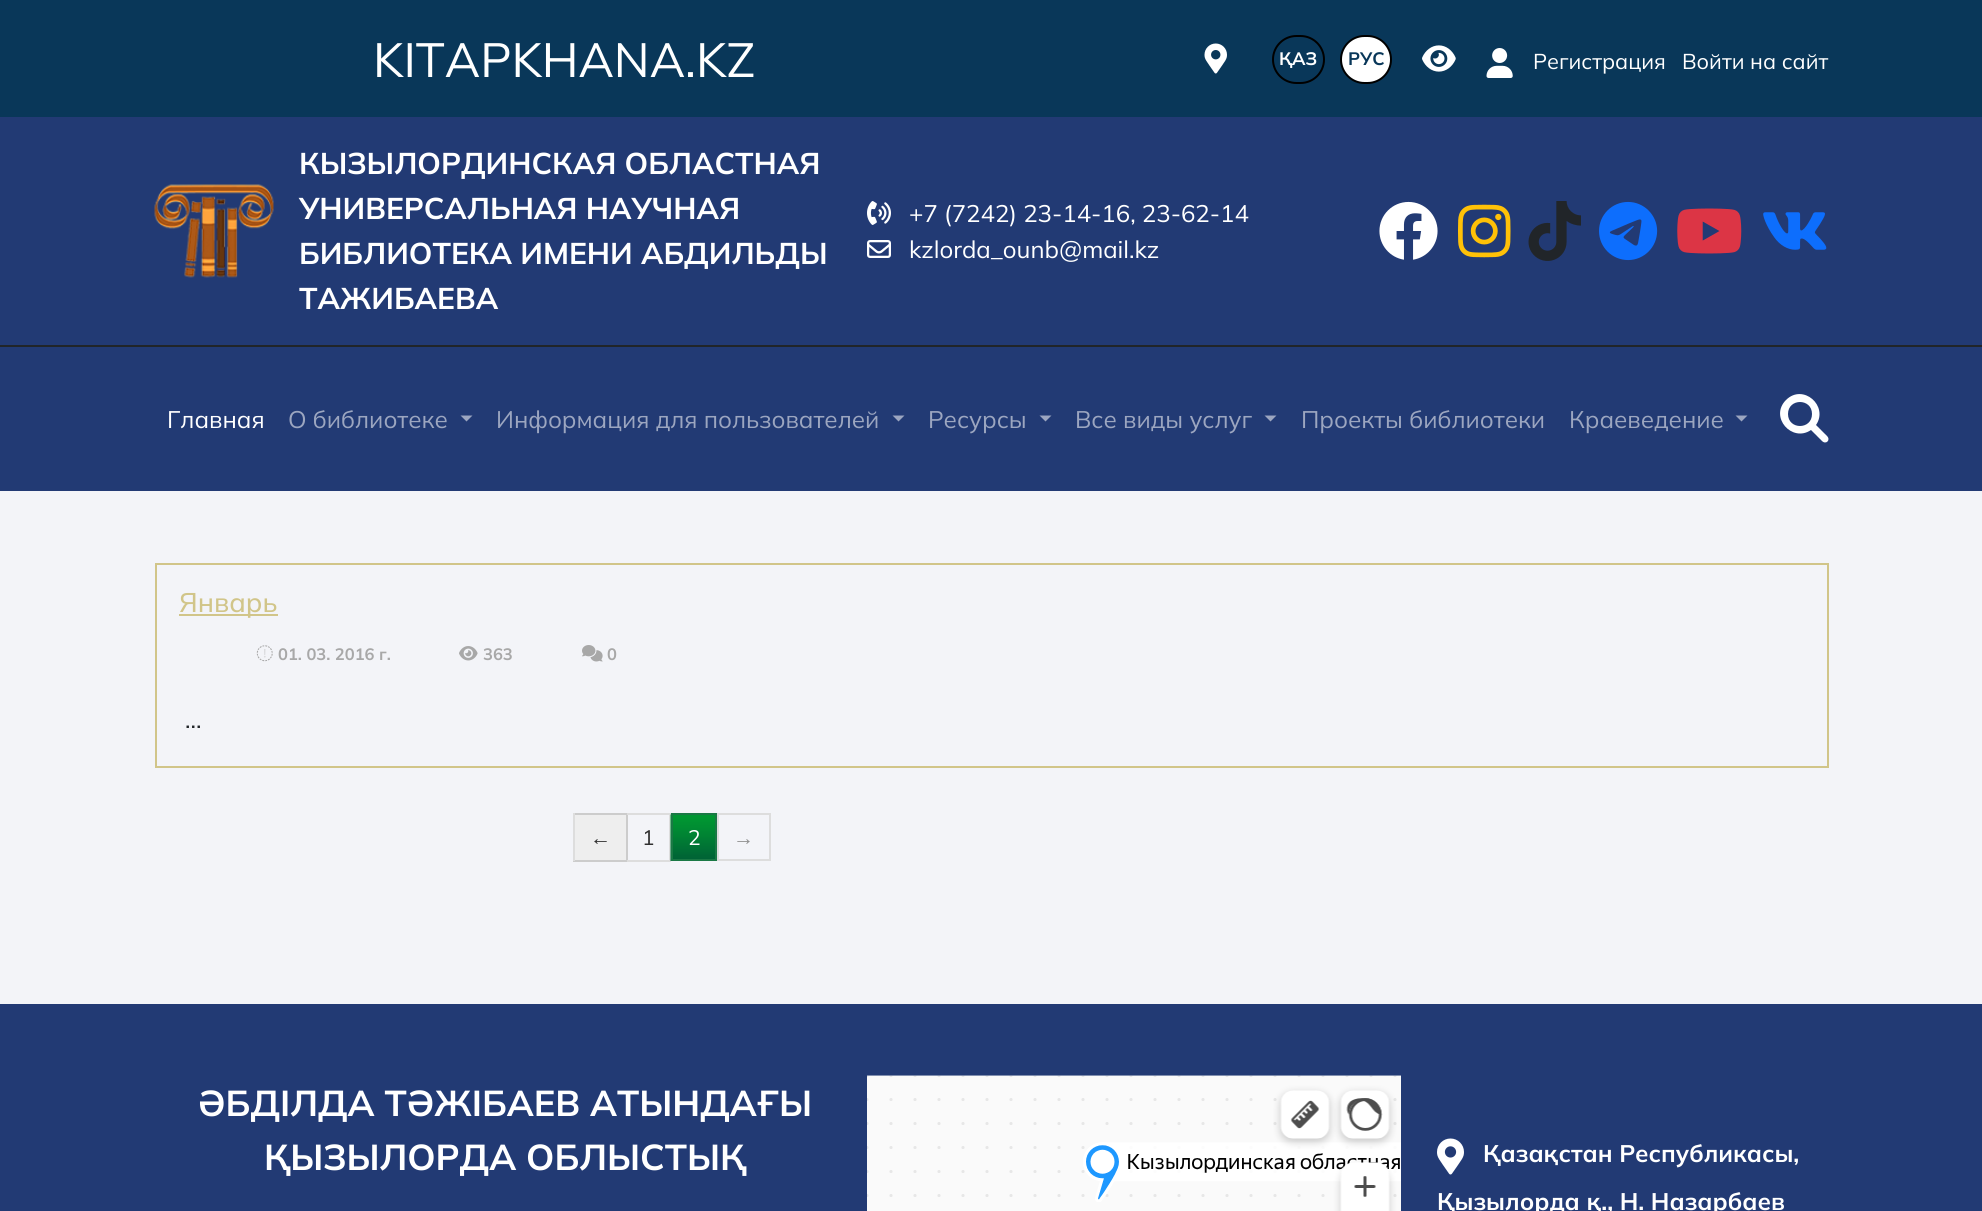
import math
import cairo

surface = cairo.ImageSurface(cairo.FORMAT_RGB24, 1982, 1211)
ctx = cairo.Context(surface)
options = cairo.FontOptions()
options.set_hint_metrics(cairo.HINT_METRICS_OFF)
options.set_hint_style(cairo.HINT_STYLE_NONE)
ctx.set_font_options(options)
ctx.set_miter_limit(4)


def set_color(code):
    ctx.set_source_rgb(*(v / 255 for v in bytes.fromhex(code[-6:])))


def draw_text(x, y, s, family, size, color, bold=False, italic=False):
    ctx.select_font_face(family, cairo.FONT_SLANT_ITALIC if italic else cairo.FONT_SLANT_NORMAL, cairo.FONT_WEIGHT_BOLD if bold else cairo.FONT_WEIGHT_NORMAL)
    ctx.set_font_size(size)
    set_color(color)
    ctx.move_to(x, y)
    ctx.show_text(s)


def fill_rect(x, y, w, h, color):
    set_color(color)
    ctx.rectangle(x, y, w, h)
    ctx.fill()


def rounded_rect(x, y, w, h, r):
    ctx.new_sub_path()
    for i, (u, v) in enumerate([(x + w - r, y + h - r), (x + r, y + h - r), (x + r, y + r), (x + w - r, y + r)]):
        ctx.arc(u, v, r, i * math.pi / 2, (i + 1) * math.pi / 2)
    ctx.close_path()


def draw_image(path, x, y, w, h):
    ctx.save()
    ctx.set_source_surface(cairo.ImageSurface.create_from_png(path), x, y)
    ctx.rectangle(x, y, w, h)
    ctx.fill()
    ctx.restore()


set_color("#f3f4f8")
ctx.paint()
fill_rect(0, 0, 1982, 117, "#093759")
draw_text(373, 77, "KITAPKHANA.KZ", "Mulish", 48, "#ffffff")
draw_image("assets/img1.png", 1204, 43, 23, 31)
rounded_rect(1273, 36, 51, 47, 23.5)
set_color("#000000")
ctx.stroke()
draw_text(1279, 65, "ҚАЗ", "Mulish", 18, "#ffffff", bold=True)
rounded_rect(1341, 36, 50, 47, 23.5)
ctx.fill_preserve()
set_color("#000000")
ctx.stroke()
draw_text(1348, 65, "РУС", "Mulish", 18, "#093759", bold=True)
draw_image("assets/img2.png", 1422, 45, 34, 27)
draw_image("assets/img3.png", 1486, 48, 27, 30)
draw_text(1533, 69, "Регистрация", "Mulish", 21.5, "#ffffff")
draw_text(1682, 69, "Войти на сайт", "Mulish", 21.5, "#ffffff")
fill_rect(0, 117, 1982, 228, "#223a74")
fill_rect(0, 345, 1982, 2, "#212529")
draw_image("assets/img4.png", 154, 184, 120, 94)
draw_text(299, 174, "КЫЗЫЛОРДИНСКАЯ ОБЛАСТНАЯ", "Mulish", 30, "#ffffff", bold=True)
draw_text(299, 219, "УНИВЕРСАЛЬНАЯ НАУЧНАЯ", "Mulish", 30, "#ffffff", bold=True)
draw_text(299, 264, "БИБЛИОТЕКА ИМЕНИ АБДИЛЬДЫ", "Mulish", 30, "#ffffff", bold=True)
draw_text(299, 309, "ТАЖИБАЕВА", "Mulish", 30, "#ffffff", bold=True)
draw_image("assets/img5.png", 867, 201, 24, 24)
draw_text(909, 222, "+7 (7242) 23-14-16, 23-62-14", "Mulish", 24, "#ffffff")
draw_image("assets/img6.png", 867, 240, 24, 18)
draw_text(909, 258, "kzlorda_ounb@mail.kz", "Mulish", 24, "#ffffff")
draw_image("assets/img7.png", 1379, 201, 59, 59)
draw_image("assets/img8.png", 1458, 204, 53, 54)
draw_image("assets/img9.png", 1528, 201, 53, 60)
draw_image("assets/img10.png", 1599, 201, 59, 60)
draw_image("assets/img11.png", 1677, 208, 65, 46)
draw_image("assets/img12.png", 1763, 212, 64, 38)
fill_rect(0, 347, 1982, 144, "#223a74")
draw_text(167, 428, "Главная", "Mulish", 24, "#ffffff")
draw_text(288, 428, "О библиотеке", "Mulish", 24, "#9ca6c0")
ctx.new_path()
ctx.move_to(460.5, 415.5)
ctx.line_to(472.5, 415.5)
ctx.line_to(466.5, 421.5)
ctx.close_path()
ctx.fill()
draw_text(496, 428, "Информация для пользователей", "Mulish", 24, "#9ca6c0")
ctx.new_path()
ctx.move_to(892.5, 415.5)
ctx.line_to(904.5, 415.5)
ctx.line_to(898.5, 421.5)
ctx.close_path()
ctx.fill()
draw_text(928, 428, "Ресурсы", "Mulish", 24, "#9ca6c0")
ctx.new_path()
ctx.move_to(1039.5, 415.5)
ctx.line_to(1051.5, 415.5)
ctx.line_to(1045.5, 421.5)
ctx.close_path()
ctx.fill()
draw_text(1075, 428, "Все виды услуг", "Mulish", 24, "#9ca6c0")
ctx.new_path()
ctx.move_to(1264.5, 415.5)
ctx.line_to(1276.5, 415.5)
ctx.line_to(1270.5, 421.5)
ctx.close_path()
ctx.fill()
draw_text(1301, 428, "Проекты библиотеки", "Mulish", 24, "#9ca6c0")
draw_text(1569, 428, "Краеведение", "Mulish", 24, "#9ca6c0")
ctx.new_path()
ctx.move_to(1735.5, 415.5)
ctx.line_to(1747.5, 415.5)
ctx.line_to(1741.5, 421.5)
ctx.close_path()
ctx.fill()
set_color("#ffffff")
ctx.new_path()
ctx.move_to(1827, 436)
ctx.line_to(1816, 425)
ctx.curve_to(1829, 406, 1803, 383, 1786, 400)
ctx.curve_to(1769, 417, 1792, 443, 1811, 430)
ctx.line_to(1822, 441)
ctx.curve_to(1826, 445, 1831, 440, 1827, 436)
ctx.close_path()
ctx.move_to(1788, 414)
ctx.curve_to(1788, 398, 1812, 398, 1812, 414)
ctx.curve_to(1812, 430, 1788, 430, 1788, 414)
ctx.close_path()
ctx.fill()
ctx.rectangle(156, 564, 1672, 203)
set_color("#d1c589")
ctx.stroke()
fill_rect(179, 614, 99, 2, "#d1c589")
draw_text(179, 612, "Январь", "Mulish Medium", 27, "#d1c589")
draw_image("assets/img13.png", 256, 645, 17, 17)
draw_text(278, 660, "01. 03. 2016 г.", "Mulish", 16.5, "#a8a8a8", bold=True)
draw_image("assets/img14.png", 459, 646, 19, 15)
draw_text(483, 660, "363", "Mulish", 16.5, "#a8a8a8", bold=True)
draw_image("assets/img15.png", 582, 645, 21, 17)
draw_text(607, 660, "0", "Mulish", 16.5, "#a8a8a8", bold=True)
draw_text(185, 728, "...", "Mulish", 24, "#212529")
fill_rect(575, 815, 51, 45, "#eeeeee")
fill_rect(573, 813, 54, 2, "#cccccc")
fill_rect(626, 813, 2, 48, "#cccccc")
fill_rect(573, 860, 54, 2, "#cccccc")
fill_rect(573, 813, 2, 48, "#dddddd")
draw_text(590, 845, "←", "Liberation Sans", 21, "#303030")
fill_rect(627, 813, 44, 2, "#dddddd")
fill_rect(669, 813, 2, 48, "#dddddd")
fill_rect(627, 860, 44, 2, "#dddddd")
draw_text(642, 845, "1", "Mulish", 21, "#303030")
draw_image("assets/img16.png", 670, 814, 45, 47)
ctx.rectangle(672, 814, 44, 46)
set_color("#1a7945")
ctx.stroke()
draw_text(688, 845, "2", "Mulish", 21, "#ffffff")
ctx.rectangle(718, 814, 52, 46)
set_color("#dddddd")
ctx.stroke()
draw_text(733, 845, "→", "Liberation Sans", 21, "#909090")
fill_rect(0, 1004, 1982, 207, "#223a74")
draw_text(198, 1116, "ӘБДІЛДА ТӘЖІБАЕВ АТЫНДАҒЫ", "Mulish", 36, "#ffffff", bold=True)
draw_text(264, 1170, "ҚЫЗЫЛОРДА ОБЛЫСТЫҚ", "Mulish", 36, "#ffffff", bold=True)
draw_image("assets/img17.png", 867, 1075, 534, 136)
draw_image("assets/img18.png", 1437, 1138, 27, 37)
draw_text(1483, 1162, "Қазақстан Республикасы,", "Mulish", 24, "#ffffff", bold=True)
draw_text(1437, 1210, "Қызылорда қ., Н. Назарбаев", "Mulish", 24, "#ffffff", bold=True)
surface.write_to_png("output.png")
